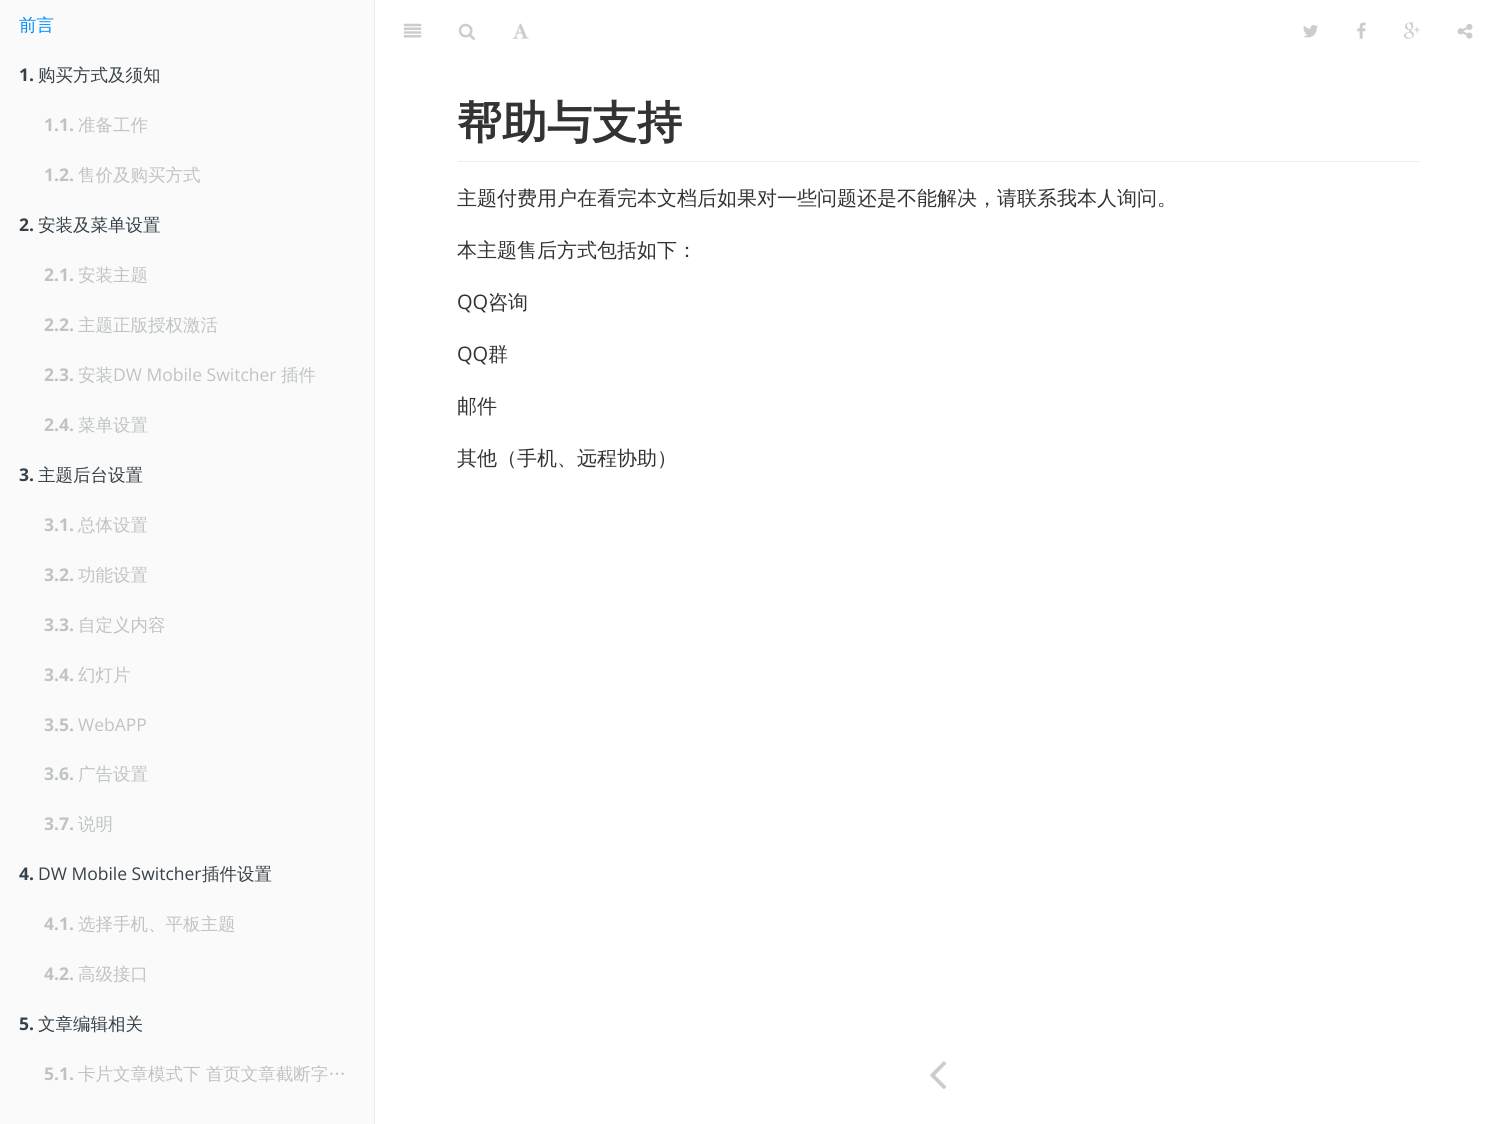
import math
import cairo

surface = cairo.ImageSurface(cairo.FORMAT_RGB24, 1501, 1124)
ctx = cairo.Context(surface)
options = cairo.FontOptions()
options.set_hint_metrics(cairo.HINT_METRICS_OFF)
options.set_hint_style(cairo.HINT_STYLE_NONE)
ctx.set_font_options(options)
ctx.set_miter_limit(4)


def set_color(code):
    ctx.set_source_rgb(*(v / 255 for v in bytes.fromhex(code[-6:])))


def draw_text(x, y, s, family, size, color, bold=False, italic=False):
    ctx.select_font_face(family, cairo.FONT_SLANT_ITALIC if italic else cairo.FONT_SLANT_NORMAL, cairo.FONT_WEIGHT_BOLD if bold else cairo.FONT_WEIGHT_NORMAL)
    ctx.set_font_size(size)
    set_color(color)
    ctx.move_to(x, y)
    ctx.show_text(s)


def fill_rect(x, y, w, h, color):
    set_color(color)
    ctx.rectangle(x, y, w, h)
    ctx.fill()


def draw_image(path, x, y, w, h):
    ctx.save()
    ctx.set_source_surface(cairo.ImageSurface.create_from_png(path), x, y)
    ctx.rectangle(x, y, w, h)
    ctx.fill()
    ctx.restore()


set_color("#ffffff")
ctx.paint()
fill_rect(0, 0, 374, 1124, "#fafafa")
fill_rect(374, 0, 1, 1124, "#e9e9e9")
draw_text(19, 31, "前言", "WenQuanYi Zen Hei Medium", 17.5, "#008cff")
draw_text(19, 81, "1.", "Open Sans", 17.5, "#364149", bold=True)
draw_text(38, 81, "购买方式及须知", "WenQuanYi Zen Hei Medium", 17.5, "#364149")
draw_text(44, 131, "1.1.", "Open Sans", 17.5, "#bfc3c5", bold=True)
draw_text(78, 131, "准备工作", "WenQuanYi Zen Hei Medium", 17.5, "#bfc3c5")
draw_text(44, 181, "1.2.", "Open Sans", 17.5, "#bfc3c5", bold=True)
draw_text(78, 181, "售价及购买方式", "WenQuanYi Zen Hei Medium", 17.5, "#bfc3c5")
draw_text(19, 231, "2.", "Open Sans", 17.5, "#364149", bold=True)
draw_text(38, 231, "安装及菜单设置", "WenQuanYi Zen Hei Medium", 17.5, "#364149")
draw_text(44, 281, "2.1.", "Open Sans", 17.5, "#bfc3c5", bold=True)
draw_text(78, 281, "安装主题", "WenQuanYi Zen Hei Medium", 17.5, "#bfc3c5")
draw_text(44, 331, "2.2.", "Open Sans", 17.5, "#bfc3c5", bold=True)
draw_text(78, 331, "主题正版授权激活", "WenQuanYi Zen Hei Medium", 17.5, "#bfc3c5")
draw_text(44, 381, "2.3.", "Open Sans", 17.5, "#bfc3c5", bold=True)
draw_text(78, 381, "安装", "WenQuanYi Zen Hei Medium", 17.5, "#bfc3c5")
draw_text(113, 381, "DW Mobile Switcher", "Open Sans", 17.5, "#bfc3c5")
draw_text(281, 381, "插件", "WenQuanYi Zen Hei Medium", 17.5, "#bfc3c5")
draw_text(44, 431, "2.4.", "Open Sans", 17.5, "#bfc3c5", bold=True)
draw_text(78, 431, "菜单设置", "WenQuanYi Zen Hei Medium", 17.5, "#bfc3c5")
draw_text(19, 481, "3.", "Open Sans", 17.5, "#364149", bold=True)
draw_text(38, 481, "主题后台设置", "WenQuanYi Zen Hei Medium", 17.5, "#364149")
draw_text(44, 531, "3.1.", "Open Sans", 17.5, "#bfc3c5", bold=True)
draw_text(78, 531, "总体设置", "WenQuanYi Zen Hei Medium", 17.5, "#bfc3c5")
draw_text(44, 581, "3.2.", "Open Sans", 17.5, "#bfc3c5", bold=True)
draw_text(78, 581, "功能设置", "WenQuanYi Zen Hei Medium", 17.5, "#bfc3c5")
draw_text(44, 631, "3.3.", "Open Sans", 17.5, "#bfc3c5", bold=True)
draw_text(78, 631, "自定义内容", "WenQuanYi Zen Hei Medium", 17.5, "#bfc3c5")
draw_text(44, 681, "3.4.", "Open Sans", 17.5, "#bfc3c5", bold=True)
draw_text(78, 681, "幻灯片", "WenQuanYi Zen Hei Medium", 17.5, "#bfc3c5")
draw_text(44, 731, "3.5.", "Open Sans", 17.5, "#bfc3c5", bold=True)
draw_text(78, 731, "WebAPP", "Open Sans", 17.5, "#bfc3c5")
draw_text(44, 780, "3.6.", "Open Sans", 17.5, "#bfc3c5", bold=True)
draw_text(78, 780, "广告设置", "WenQuanYi Zen Hei Medium", 17.5, "#bfc3c5")
draw_text(44, 830, "3.7.", "Open Sans", 17.5, "#bfc3c5", bold=True)
draw_text(78, 830, "说明", "WenQuanYi Zen Hei Medium", 17.5, "#bfc3c5")
draw_text(19, 880, "4.", "Open Sans", 17.5, "#364149", bold=True)
draw_text(38, 880, "DW Mobile Switcher", "Open Sans", 17.5, "#364149")
draw_text(202, 880, "插件设置", "WenQuanYi Zen Hei Medium", 17.5, "#364149")
draw_text(44, 930, "4.1.", "Open Sans", 17.5, "#bfc3c5", bold=True)
draw_text(78, 930, "选择手机、平板主题", "WenQuanYi Zen Hei Medium", 17.5, "#bfc3c5")
draw_text(44, 980, "4.2.", "Open Sans", 17.5, "#bfc3c5", bold=True)
draw_text(78, 980, "高级接口", "WenQuanYi Zen Hei Medium", 17.5, "#bfc3c5")
draw_text(19, 1030, "5.", "Open Sans", 17.5, "#364149", bold=True)
draw_text(38, 1030, "文章编辑相关", "WenQuanYi Zen Hei Medium", 17.5, "#364149")
draw_text(44, 1080, "5.1.", "Open Sans", 17.5, "#bfc3c5", bold=True)
draw_text(78, 1080, "卡片文章模式下 首页文章截断字…", "WenQuanYi Zen Hei Medium", 17.5, "#bfc3c5")
draw_image("assets/img1.png", 403, 23, 19, 15)
draw_image("assets/img2.png", 458, 23, 17, 17)
draw_image("assets/img3.png", 512, 23, 17, 16)
draw_image("assets/img4.png", 1303, 25, 15, 13)
draw_image("assets/img5.png", 1357, 22, 9, 17)
draw_image("assets/img6.png", 1404, 22, 16, 17)
draw_image("assets/img7.png", 1457, 23, 16, 16)
fill_rect(458, 161, 962, 1, "#eeeeee")
draw_text(457, 138, "帮助与支持", "WenQuanYi Zen Hei", 45, "#333333", bold=True)
draw_text(457, 205, "主题付费用户在看完本文档后如果对一些问题还是不能解决，请联系我本人询问。", "WenQuanYi Zen Hei Medium", 20, "#333333")
draw_text(457, 257, "本主题售后方式包括如下：", "WenQuanYi Zen Hei Medium", 20, "#333333")
draw_text(457, 309, "QQ", "Open Sans", 20, "#333333")
draw_text(488, 309, "咨询", "WenQuanYi Zen Hei Medium", 20, "#333333")
draw_text(457, 361, "QQ", "Open Sans", 20, "#333333")
draw_text(488, 361, "群", "WenQuanYi Zen Hei Medium", 20, "#333333")
draw_text(457, 413, "邮件", "WenQuanYi Zen Hei Medium", 20, "#333333")
draw_text(457, 465, "其他（手机、远程协助）", "WenQuanYi Zen Hei Medium", 20, "#333333")
draw_image("assets/img8.png", 930, 1061, 17, 28)
surface.write_to_png("output.png")
